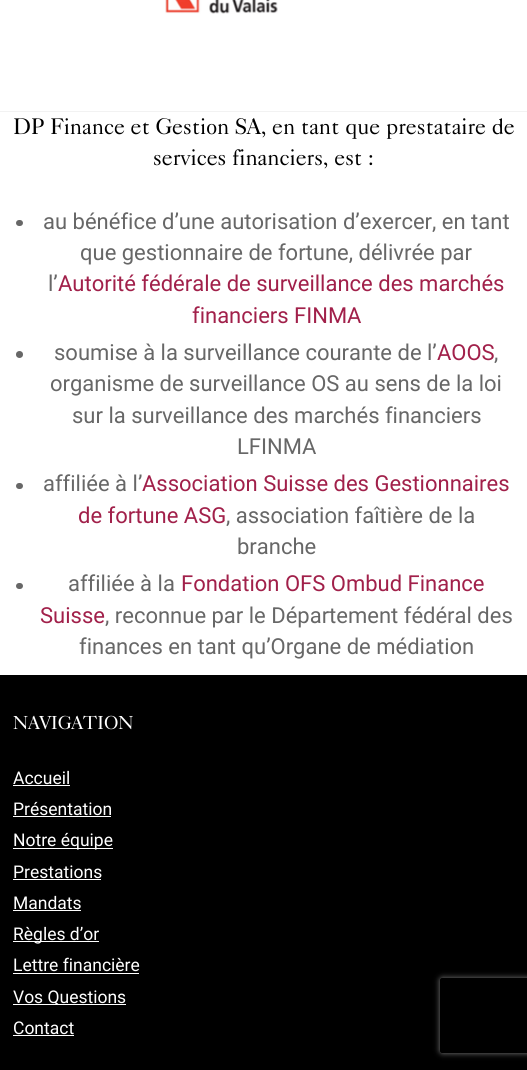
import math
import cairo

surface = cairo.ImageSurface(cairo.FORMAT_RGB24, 527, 1070)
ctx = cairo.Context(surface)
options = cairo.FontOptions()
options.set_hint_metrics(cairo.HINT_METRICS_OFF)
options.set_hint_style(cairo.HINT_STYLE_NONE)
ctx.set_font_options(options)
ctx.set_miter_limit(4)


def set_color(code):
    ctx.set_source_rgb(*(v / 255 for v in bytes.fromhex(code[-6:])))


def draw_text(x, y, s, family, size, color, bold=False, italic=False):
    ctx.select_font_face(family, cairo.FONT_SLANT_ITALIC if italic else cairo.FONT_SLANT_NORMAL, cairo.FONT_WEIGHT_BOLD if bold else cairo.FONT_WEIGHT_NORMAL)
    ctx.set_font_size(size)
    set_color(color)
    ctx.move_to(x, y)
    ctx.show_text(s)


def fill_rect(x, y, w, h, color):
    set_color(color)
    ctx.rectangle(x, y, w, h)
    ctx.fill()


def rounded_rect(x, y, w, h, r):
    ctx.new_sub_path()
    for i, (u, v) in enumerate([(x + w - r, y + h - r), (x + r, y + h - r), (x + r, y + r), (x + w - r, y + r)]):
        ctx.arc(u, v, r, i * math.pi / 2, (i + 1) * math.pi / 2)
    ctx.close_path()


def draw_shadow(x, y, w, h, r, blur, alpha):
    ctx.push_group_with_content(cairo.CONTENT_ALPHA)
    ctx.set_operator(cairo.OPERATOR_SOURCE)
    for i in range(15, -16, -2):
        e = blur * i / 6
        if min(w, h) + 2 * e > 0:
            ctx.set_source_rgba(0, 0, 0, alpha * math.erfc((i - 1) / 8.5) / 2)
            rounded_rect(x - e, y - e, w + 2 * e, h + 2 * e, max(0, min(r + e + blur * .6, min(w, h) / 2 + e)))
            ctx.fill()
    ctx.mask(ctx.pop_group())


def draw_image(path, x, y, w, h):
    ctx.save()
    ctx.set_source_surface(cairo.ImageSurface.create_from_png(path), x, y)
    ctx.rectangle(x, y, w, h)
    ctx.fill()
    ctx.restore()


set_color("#ffffff")
ctx.paint()
draw_image("assets/img1.png", 165, 0, 113, 14)
fill_rect(0, 111, 527, 1, "#f2f2f2")
draw_text(13, 134, "DP Finance et Gestion SA, en tant que prestataire de", "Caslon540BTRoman", 22.5, "#000000")
draw_text(153, 165, "services financiers, est :", "Caslon540BTRoman", 22.5, "#000000")
set_color("#676767")
rounded_rect(16, 220, 7, 6, 3)
ctx.fill()
draw_text(43, 229, "au bénéfice d’une autorisation d’exercer, en tant", "Roboto", 22, "#676767")
draw_text(80, 260, "que gestionnaire de fortune, délivrée par", "Roboto", 22, "#676767")
draw_text(48, 291, "l’", "Roboto", 22, "#676767")
draw_text(58, 291, "Autorité fédérale de surveillance des marchés", "Roboto", 22, "#a1204a")
draw_text(192, 323, "financiers FINMA", "Roboto", 22, "#a1204a")
set_color("#676767")
ctx.new_path()
ctx.arc(19.5, 354.5, 3.5, 0, 2 * math.pi)
ctx.fill()
draw_text(54, 360, "soumise à la surveillance courante de l’", "Roboto", 22, "#676767")
draw_text(437, 360, "AOOS", "Roboto", 22, "#a1204a")
draw_text(494, 360, ",", "Roboto", 22, "#676767")
draw_text(50, 391, "organisme de surveillance OS au sens de la loi", "Roboto", 22, "#676767")
draw_text(72, 423, "sur la surveillance des marchés financiers", "Roboto", 22, "#676767")
draw_text(237, 454, "LFINMA", "Roboto", 22, "#676767")
rounded_rect(16, 483, 7, 6, 3)
ctx.fill()
draw_text(43, 491, "affiliée à l’", "Roboto", 22, "#676767")
draw_text(142, 491, "Association Suisse des Gestionnaires", "Roboto", 22, "#a1204a")
draw_text(78, 523, "de fortune ASG", "Roboto", 22, "#a1204a")
draw_text(226, 523, ", association faîtière de la", "Roboto", 22, "#676767")
draw_text(237, 554, "branche", "Roboto", 22, "#676767")
rounded_rect(16, 583, 7, 6, 3)
ctx.fill()
draw_text(68, 591, "affiliée à la", "Roboto", 22, "#676767")
draw_text(181, 591, "Fondation OFS Ombud Finance", "Roboto", 22, "#a1204a")
draw_text(40, 623, "Suisse", "Roboto", 22, "#a1204a")
draw_text(105, 623, ", reconnue par le Département fédéral des", "Roboto", 22, "#676767")
draw_text(79, 654, "finances en tant qu’Organe de médiation", "Roboto", 22, "#676767")
fill_rect(0, 675, 527, 395, "#000000")
draw_text(13, 729, "NAVIGATION", "Caslon540BTRoman", 18.75, "#ffffff")
draw_text(13, 784, "Accueil", "Roboto", 17.5, "#ffffff")
fill_rect(13, 785, 57, 1, "#ffffff")
draw_text(13, 815, "Présentation", "Roboto", 17.5, "#ffffff")
fill_rect(13, 816, 98, 1, "#ffffff")
fill_rect(13, 848, 100, 1, "#ffffff")
draw_text(13, 846, "Notre équipe", "Roboto", 17.5, "#ffffff")
draw_text(13, 878, "Prestations", "Roboto", 17.5, "#ffffff")
fill_rect(13, 879, 88, 1, "#ffffff")
draw_text(13, 909, "Mandats", "Roboto", 17.5, "#ffffff")
fill_rect(13, 910, 68, 1, "#ffffff")
fill_rect(13, 941, 86, 1, "#ffffff")
draw_text(13, 940, "Règles d’or", "Roboto", 17.5, "#ffffff")
draw_text(13, 971, "Lettre financière", "Roboto", 17.5, "#ffffff")
fill_rect(13, 973, 126, 1, "#ffffff")
fill_rect(13, 1004, 113, 1, "#ffffff")
draw_text(13, 1003, "Vos Questions", "Roboto", 17.5, "#ffffff")
draw_text(13, 1034, "Contact", "Roboto", 17.5, "#ffffff")
fill_rect(13, 1035, 61, 1, "#ffffff")
ctx.save()
ctx.set_fill_rule(cairo.FILL_RULE_EVEN_ODD)
ctx.new_path()
ctx.move_to(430, 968)
ctx.line_to(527, 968)
ctx.line_to(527, 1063)
ctx.line_to(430, 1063)
ctx.close_path()
ctx.move_to(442.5, 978)
ctx.line_to(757.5, 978)
ctx.curve_to(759, 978, 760, 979, 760, 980.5)
ctx.line_to(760, 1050.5)
ctx.curve_to(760, 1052, 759, 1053, 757.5, 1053)
ctx.line_to(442.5, 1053)
ctx.curve_to(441, 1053, 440, 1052, 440, 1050.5)
ctx.line_to(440, 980.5)
ctx.curve_to(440, 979, 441, 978, 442.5, 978)
ctx.close_path()
ctx.clip()
set_color("#808080")
draw_shadow(440, 978, 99, 75, 2.5, 3, 1)
ctx.restore()
surface.write_to_png("output.png")
